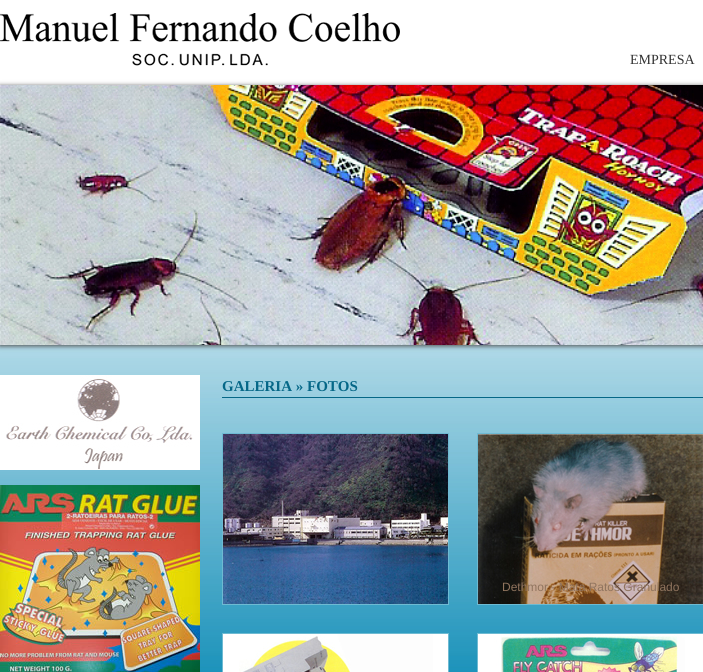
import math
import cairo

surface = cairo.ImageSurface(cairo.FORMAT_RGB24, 703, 672)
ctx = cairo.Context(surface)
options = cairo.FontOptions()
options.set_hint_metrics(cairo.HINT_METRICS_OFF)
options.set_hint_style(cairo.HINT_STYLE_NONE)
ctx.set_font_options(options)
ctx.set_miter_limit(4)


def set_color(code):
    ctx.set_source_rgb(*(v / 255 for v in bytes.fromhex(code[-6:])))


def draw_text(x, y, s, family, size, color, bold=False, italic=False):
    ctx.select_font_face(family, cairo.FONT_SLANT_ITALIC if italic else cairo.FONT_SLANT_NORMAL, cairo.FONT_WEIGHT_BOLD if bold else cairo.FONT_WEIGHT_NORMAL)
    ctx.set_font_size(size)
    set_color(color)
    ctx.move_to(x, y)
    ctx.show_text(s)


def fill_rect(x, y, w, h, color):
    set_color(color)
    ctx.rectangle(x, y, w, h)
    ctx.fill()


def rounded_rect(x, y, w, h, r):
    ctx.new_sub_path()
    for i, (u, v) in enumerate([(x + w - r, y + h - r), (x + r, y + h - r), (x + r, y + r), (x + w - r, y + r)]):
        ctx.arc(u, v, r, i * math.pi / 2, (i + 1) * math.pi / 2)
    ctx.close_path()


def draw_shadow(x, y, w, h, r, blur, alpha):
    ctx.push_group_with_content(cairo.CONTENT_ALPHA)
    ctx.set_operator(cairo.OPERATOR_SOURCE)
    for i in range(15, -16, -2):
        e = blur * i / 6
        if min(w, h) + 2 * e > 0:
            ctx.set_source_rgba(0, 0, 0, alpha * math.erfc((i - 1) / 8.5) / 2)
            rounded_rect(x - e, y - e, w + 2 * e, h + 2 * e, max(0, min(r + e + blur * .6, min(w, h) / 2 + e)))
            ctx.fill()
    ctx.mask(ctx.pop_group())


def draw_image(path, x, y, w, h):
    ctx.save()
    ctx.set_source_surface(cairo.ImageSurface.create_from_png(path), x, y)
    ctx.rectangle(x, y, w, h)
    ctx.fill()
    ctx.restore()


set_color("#ffffff")
ctx.paint()
draw_image("assets/img1.png", 0, 0, 703, 672)
draw_image("assets/img2.png", 0, 13, 400, 53)
draw_text(630, 64, "EMPRESA", "Liberation Serif", 14, "#333333")
set_color("#4a4a4a")
draw_shadow(0, 86, 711, 260, 0, 2.5, 1)
draw_image("assets/img3.png", 0, 85, 703, 260)
draw_image("assets/img4.png", 0, 375, 200, 95)
draw_image("assets/img5.png", 0, 485, 200, 187)
fill_rect(222, 397, 481, 1, "#056787")
draw_text(222, 391, "GALERIA » FOTOS", "Liberation Serif", 15, "#056787", bold=True)
ctx.rectangle(222.5, 433.5, 226, 171)
set_color("#6ebad2")
ctx.set_line_width(1)
ctx.stroke()
draw_image("assets/img6.png", 223, 434, 225, 170)
ctx.rectangle(477.5, 433.5, 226, 171)
ctx.stroke()
draw_image("assets/img7.png", 478, 434, 225, 170)
draw_text(502, 591, "Dethmor - Mata Ratos Granulado", "Liberation Sans", 12, "#90745e")
ctx.rectangle(222.5, 633.5, 226, 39)
set_color("#6ebad2")
ctx.stroke()
draw_image("assets/img8.png", 223, 634, 225, 38)
ctx.rectangle(477.5, 633.5, 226, 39)
ctx.stroke()
draw_image("assets/img9.png", 478, 634, 225, 38)
surface.write_to_png("output.png")
